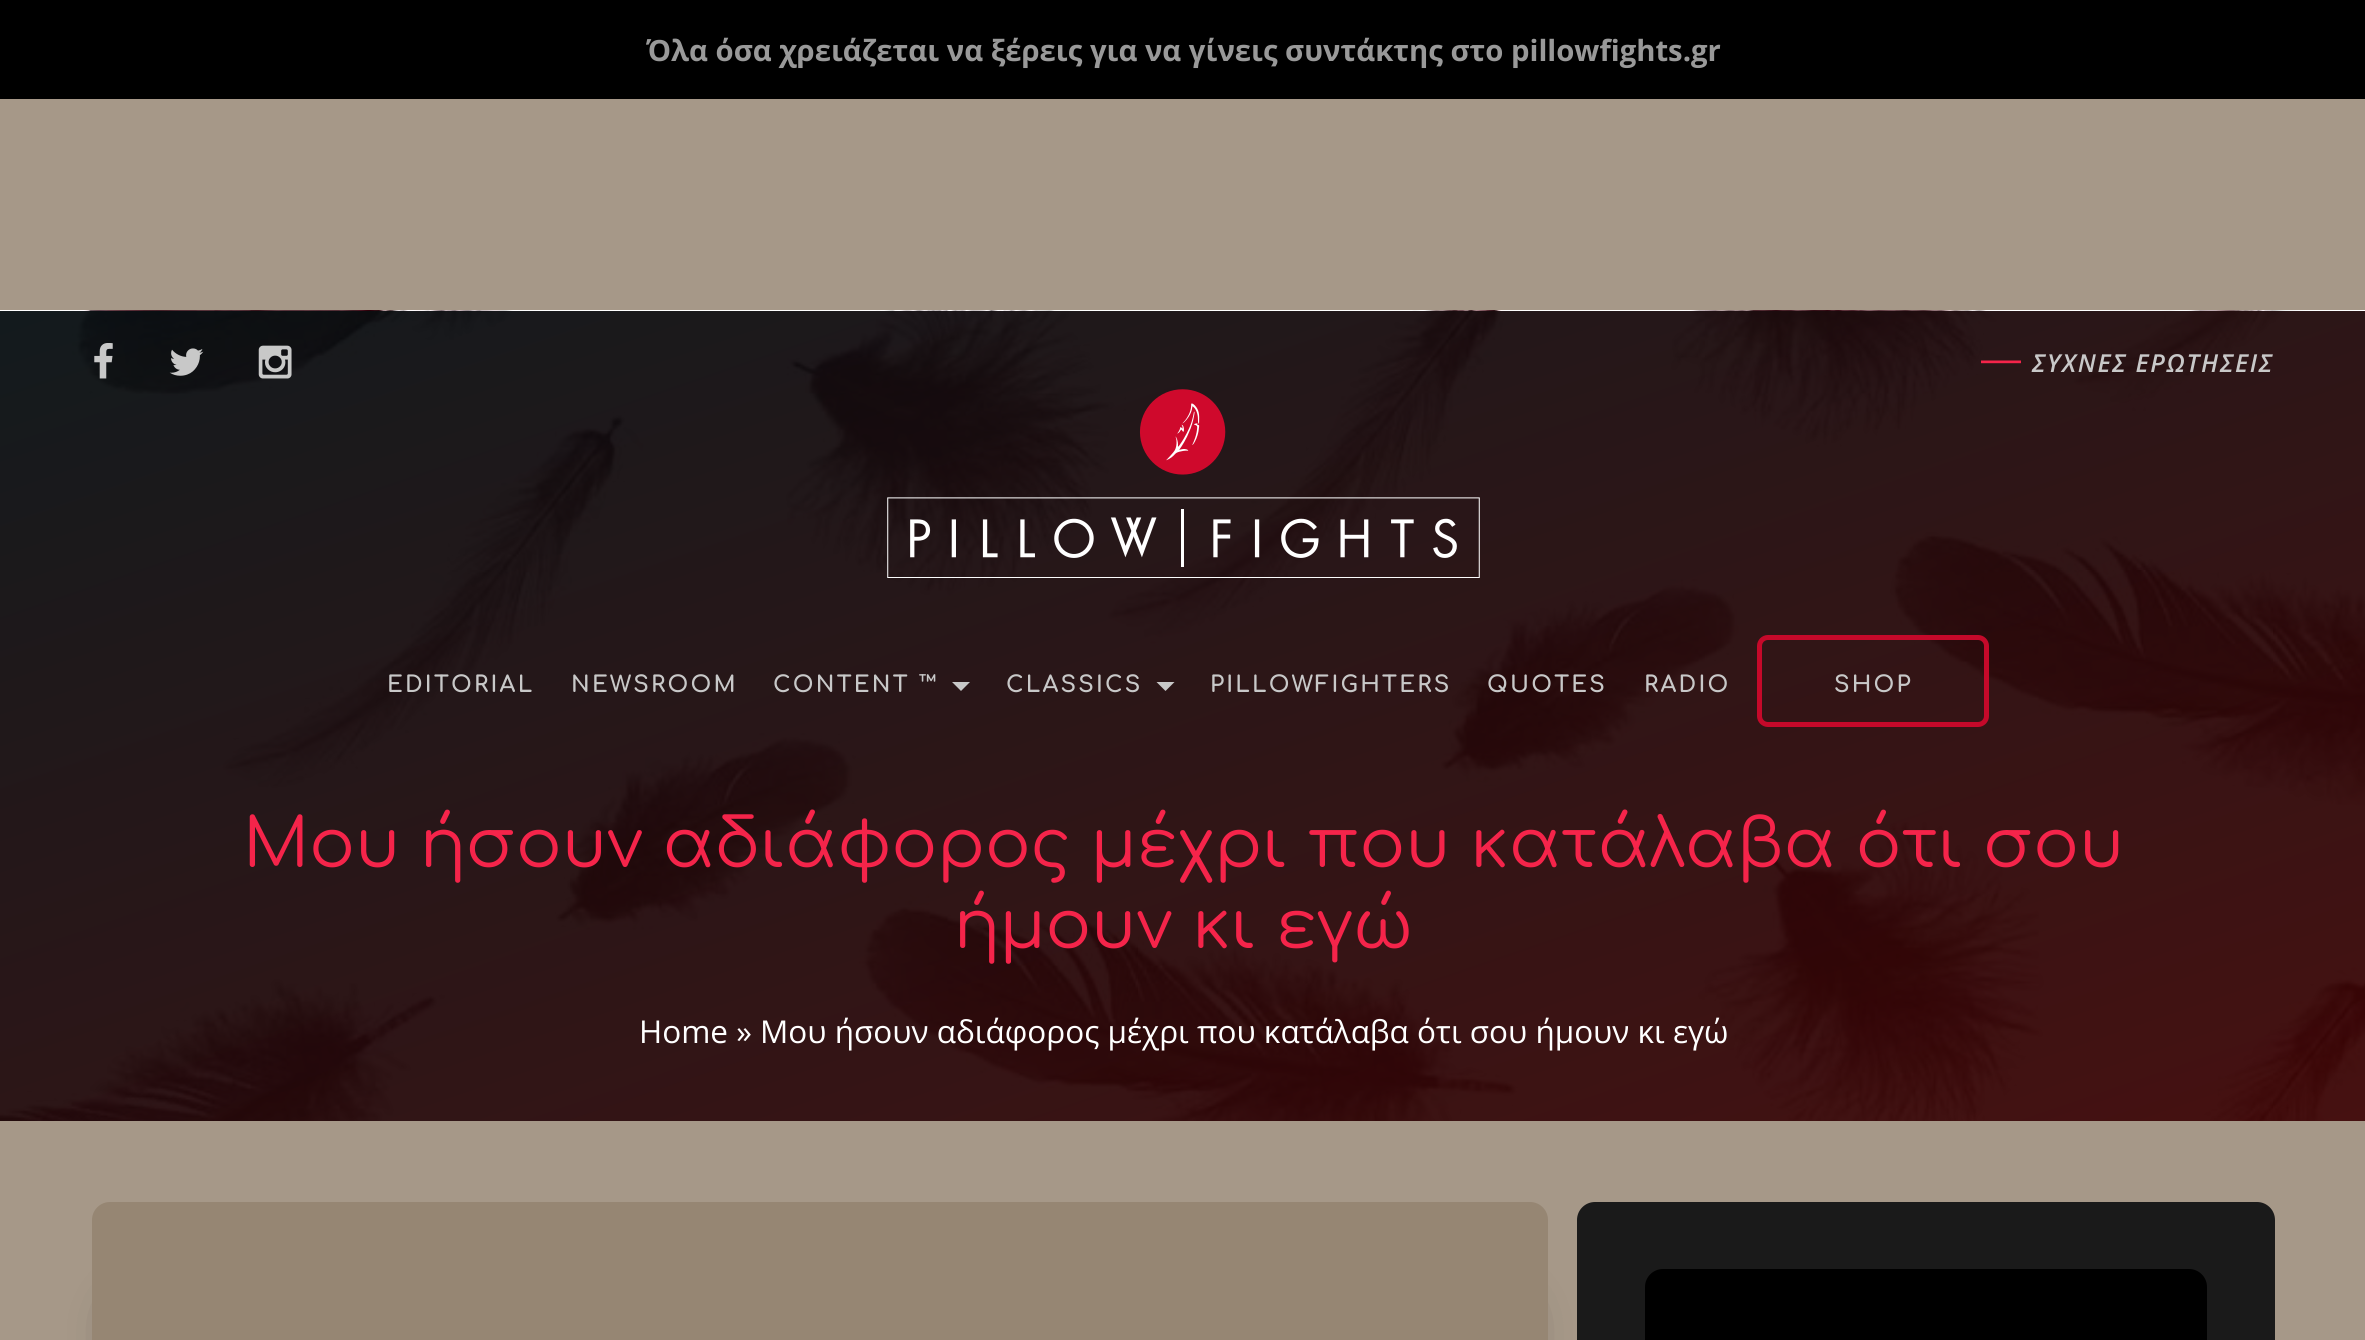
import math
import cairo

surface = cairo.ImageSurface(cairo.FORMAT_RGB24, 2365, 1340)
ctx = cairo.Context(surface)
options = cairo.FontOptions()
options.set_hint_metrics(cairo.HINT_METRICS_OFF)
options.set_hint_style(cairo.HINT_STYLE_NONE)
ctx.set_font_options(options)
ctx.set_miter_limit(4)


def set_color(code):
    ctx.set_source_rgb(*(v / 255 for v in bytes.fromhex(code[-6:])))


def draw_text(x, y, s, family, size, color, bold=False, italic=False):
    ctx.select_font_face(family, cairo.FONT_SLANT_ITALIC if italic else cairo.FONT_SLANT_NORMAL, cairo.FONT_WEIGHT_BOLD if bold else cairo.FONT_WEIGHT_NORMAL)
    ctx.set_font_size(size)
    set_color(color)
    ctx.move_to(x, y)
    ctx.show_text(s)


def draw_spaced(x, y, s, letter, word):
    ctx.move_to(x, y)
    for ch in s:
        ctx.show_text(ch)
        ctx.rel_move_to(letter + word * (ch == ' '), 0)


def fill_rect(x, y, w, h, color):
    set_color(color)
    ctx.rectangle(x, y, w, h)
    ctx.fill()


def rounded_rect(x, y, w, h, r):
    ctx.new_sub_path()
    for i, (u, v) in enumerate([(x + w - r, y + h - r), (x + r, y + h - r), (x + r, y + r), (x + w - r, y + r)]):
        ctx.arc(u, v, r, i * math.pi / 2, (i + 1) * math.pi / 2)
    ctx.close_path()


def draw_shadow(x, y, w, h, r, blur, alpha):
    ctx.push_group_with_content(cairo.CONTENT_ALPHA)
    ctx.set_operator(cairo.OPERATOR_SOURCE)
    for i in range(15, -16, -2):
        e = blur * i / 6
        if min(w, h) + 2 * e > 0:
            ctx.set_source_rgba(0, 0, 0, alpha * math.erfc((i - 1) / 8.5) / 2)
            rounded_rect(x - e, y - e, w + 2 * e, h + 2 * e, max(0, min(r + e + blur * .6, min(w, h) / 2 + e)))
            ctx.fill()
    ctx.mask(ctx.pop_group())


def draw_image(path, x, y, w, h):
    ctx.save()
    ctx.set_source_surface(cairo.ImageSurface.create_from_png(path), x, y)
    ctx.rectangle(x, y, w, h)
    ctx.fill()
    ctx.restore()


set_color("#a69888")
ctx.paint()
fill_rect(0, 0, 2365, 99, "#000000")
draw_text(646, 61, "Όλα όσα χρειάζεται να ξέρεις για να γίνεις συντάκτης στο pillowfights.gr", "Open Sans", 29.25, "#999999", bold=True)
draw_image("assets/img1.png", 0, 310, 2365, 811)
draw_image("assets/img2.png", 94, 343, 19, 36)
draw_image("assets/img3.png", 169, 348, 35, 28)
draw_image("assets/img4.png", 258, 345, 34, 34)
draw_text(1981, 372, "―", "Liberation Sans", 40, "#f5244a")
ctx.select_font_face("Open Sans SemiBold", cairo.FONT_SLANT_ITALIC)
ctx.set_font_size(24.75)
set_color("#c8c8c8")
draw_spaced(2032, 372, "ΣΥΧΝΕΣ ΕΡΩΤΗΣΕΙΣ", 1.75, 0)
draw_image("assets/img5.png", 887, 389, 593, 189)
ctx.select_font_face("Comfortaa", cairo.FONT_SLANT_NORMAL, cairo.FONT_WEIGHT_BOLD)
ctx.set_font_size(22.5)
draw_spaced(387, 692, "EDITORIAL", 2.25, 0)
draw_spaced(571, 692, "NEWSROOM", 2.25, 0)
draw_spaced(773, 692, "CONTENT ™", 2.25, 0)
ctx.new_path()
ctx.move_to(952, 682)
ctx.line_to(970, 682)
ctx.line_to(961, 691)
ctx.close_path()
ctx.fill()
draw_spaced(1006, 692, "CLASSICS", 2.25, 0)
ctx.new_path()
ctx.move_to(1156.5, 682)
ctx.line_to(1174.5, 682)
ctx.line_to(1165.5, 691)
ctx.close_path()
ctx.fill()
draw_spaced(1210, 692, "PILLOWFIGHTERS", 2.25, 0)
draw_spaced(1487, 692, "QUOTES", 2.25, 0)
draw_spaced(1644, 692, "RADIO", 2.25, 0)
rounded_rect(1759.5, 637.5, 227, 87, 8.5)
set_color("#c5092a")
ctx.set_line_width(5)
ctx.stroke()
set_color("#c8c8c8")
draw_spaced(1834, 692, "SHOP", 2.25, 0)
draw_text(243, 867, "Μου ήσουν αδιάφορος μέχρι που κατάλαβα ότι σου", "Comfortaa", 67.5, "#f5244a")
draw_text(954, 948, "ήμουν κι εγώ", "Comfortaa", 67.5, "#f5244a")
draw_text(639, 1043, "Home » Μου ήσουν αδιάφορος μέχρι που κατάλαβα ότι σου ήμουν κι εγώ", "Open Sans", 31.5, "#ffffff")
set_color("#000000")
draw_shadow(137, 1314, 1366, 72, 0, 28, 0.85)
set_color("#968673")
rounded_rect(92, 1202, 1456, 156, 18)
ctx.fill()
set_color("#1a1a1a")
rounded_rect(1577, 1202, 698, 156, 18)
ctx.fill()
set_color("#000000")
rounded_rect(1645, 1269, 562, 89, 18)
ctx.fill()
surface.write_to_png("output.png")
